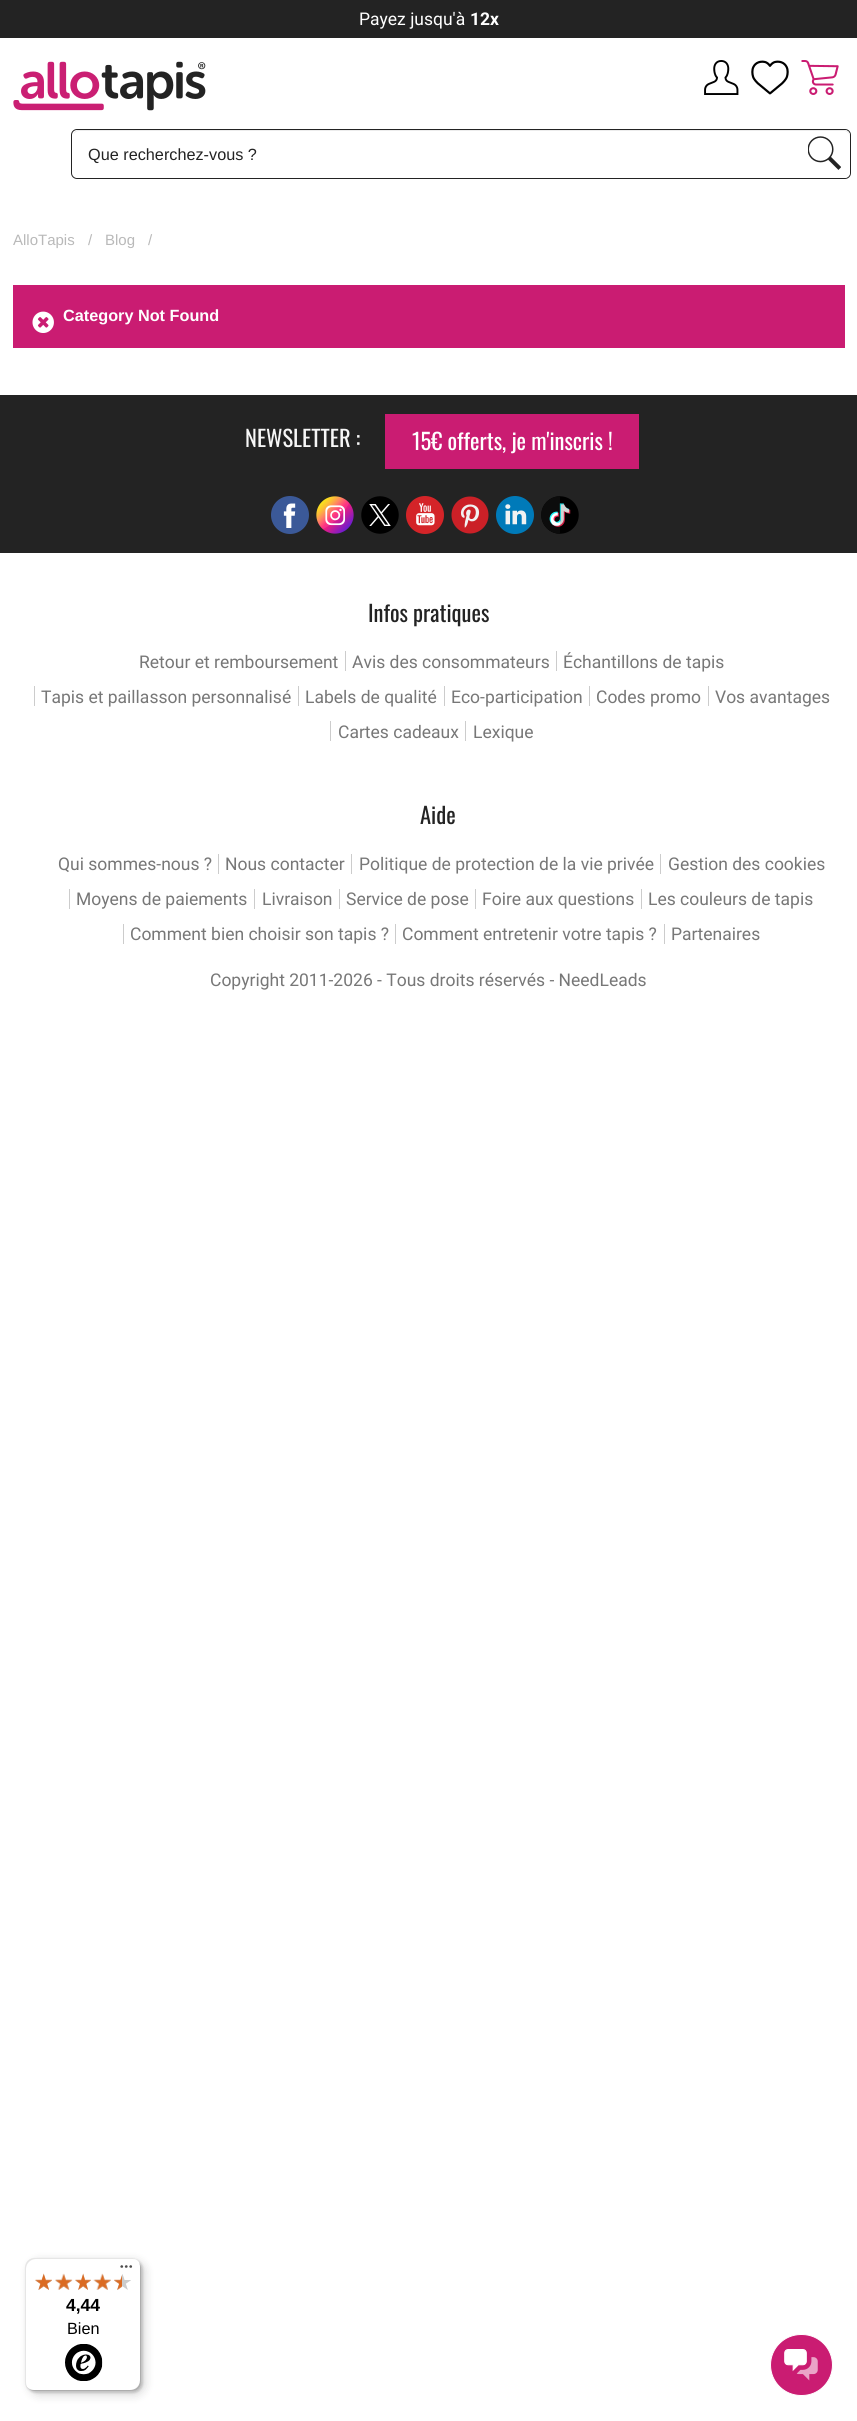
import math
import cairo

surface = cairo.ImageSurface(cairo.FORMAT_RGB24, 857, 2421)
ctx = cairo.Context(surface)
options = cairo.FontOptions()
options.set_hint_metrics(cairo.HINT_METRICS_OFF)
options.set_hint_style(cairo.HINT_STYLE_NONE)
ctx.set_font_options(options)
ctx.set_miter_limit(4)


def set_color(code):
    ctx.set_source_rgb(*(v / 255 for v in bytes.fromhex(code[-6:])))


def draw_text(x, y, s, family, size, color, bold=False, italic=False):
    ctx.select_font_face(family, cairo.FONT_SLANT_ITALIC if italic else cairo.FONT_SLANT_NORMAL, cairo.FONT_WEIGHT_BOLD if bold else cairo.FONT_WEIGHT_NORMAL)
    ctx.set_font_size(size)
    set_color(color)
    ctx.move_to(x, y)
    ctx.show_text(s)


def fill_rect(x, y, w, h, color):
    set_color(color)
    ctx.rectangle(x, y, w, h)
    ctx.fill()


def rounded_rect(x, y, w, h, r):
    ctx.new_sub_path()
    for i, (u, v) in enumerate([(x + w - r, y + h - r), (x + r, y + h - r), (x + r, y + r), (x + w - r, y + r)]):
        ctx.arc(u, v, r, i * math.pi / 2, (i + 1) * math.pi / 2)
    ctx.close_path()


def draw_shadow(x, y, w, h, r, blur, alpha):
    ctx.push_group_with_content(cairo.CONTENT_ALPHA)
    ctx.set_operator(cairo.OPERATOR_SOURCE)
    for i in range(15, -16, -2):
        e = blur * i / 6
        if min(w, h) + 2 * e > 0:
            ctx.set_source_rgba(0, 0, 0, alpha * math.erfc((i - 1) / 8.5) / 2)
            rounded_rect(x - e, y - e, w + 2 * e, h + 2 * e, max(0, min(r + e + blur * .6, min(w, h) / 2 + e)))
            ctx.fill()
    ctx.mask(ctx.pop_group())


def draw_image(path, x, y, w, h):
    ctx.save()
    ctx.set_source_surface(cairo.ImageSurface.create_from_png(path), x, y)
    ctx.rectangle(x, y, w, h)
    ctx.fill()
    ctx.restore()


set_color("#ffffff")
ctx.paint()
fill_rect(0, 0, 857, 38, "#232323")
draw_text(359, 25, "Payez jusqu'à", "Roboto", 17.5, "#ffffff")
draw_text(470, 25, "12x", "Roboto", 17.5, "#ffffff", bold=True)
draw_image("assets/img1.png", 13, 61, 193, 50)
draw_image("assets/img2.png", 704, 60, 35, 35)
draw_image("assets/img3.png", 751, 60, 38, 35)
draw_image("assets/img4.png", 801, 60, 38, 35)
rounded_rect(71.5, 129.5, 779, 49, 5.5)
set_color("#232323")
ctx.set_line_width(1)
ctx.stroke()
set_color("#ffffff")
rounded_rect(73, 130, 777, 48, 6)
ctx.fill()
set_color("#ececec")
ctx.new_path()
ctx.move_to(79, 131)
ctx.line_to(844, 131)
ctx.curve_to(847, 131, 850, 134, 850, 138)
ctx.line_to(850, 136)
ctx.curve_to(850, 133, 847, 130, 844, 130)
ctx.line_to(79, 130)
ctx.curve_to(77, 130, 74, 131, 74, 134)
ctx.curve_to(75, 132, 77, 131, 79, 131)
ctx.close_path()
ctx.fill()
draw_text(88, 160, "Que recherchez-vous ?", "Liberation Sans", 16.25, "#232323")
draw_image("assets/img5.png", 808, 136, 33, 34)
draw_text(13, 245, "AlloTapis", "Liberation Sans", 15, "#b9b9b9")
draw_text(88, 245, "/", "Liberation Sans", 15, "#b9b9b9")
draw_text(105, 245, "Blog", "Liberation Sans", 15, "#b9b9b9")
draw_text(148, 245, "/", "Liberation Sans", 15, "#b9b9b9")
fill_rect(13, 285, 832, 63, "#ca1c72")
draw_image("assets/img6.png", 32, 311, 22, 22)
draw_text(63, 321, "Category Not Found", "Liberation Sans", 16.25, "#ffffff", bold=True)
fill_rect(0, 395, 857, 158, "#232323")
draw_text(245, 447, "NEWSLETTER :", "Oswald", 22.5, "#f7f7f7")
fill_rect(385, 414, 254, 55, "#ca1c72")
draw_text(412, 450, "15€ offerts, je m'inscris !", "Oswald", 22.5, "#ffffff")
draw_image("assets/img7.png", 271, 496, 38, 38)
draw_image("assets/img8.png", 316, 496, 38, 38)
draw_image("assets/img9.png", 361, 496, 38, 38)
draw_image("assets/img10.png", 406, 496, 38, 38)
draw_image("assets/img11.png", 451, 496, 38, 38)
draw_image("assets/img12.png", 496, 496, 38, 38)
draw_image("assets/img13.png", 541, 496, 38, 38)
draw_text(368, 622, "Infos pratiques", "Oswald", 22.5, "#232323")
draw_text(139, 668, "Retour et remboursement", "Roboto", 17.5, "#777777")
draw_text(352, 668, "Avis des consommateurs", "Roboto", 17.5, "#777777")
fill_rect(345, 651, 1, 20, "#cccccc")
draw_text(563, 668, "Échantillons de tapis", "Roboto", 17.5, "#777777")
fill_rect(556, 651, 1, 20, "#cccccc")
draw_text(41, 703, "Tapis et paillasson personnalisé", "Roboto", 17.5, "#777777")
fill_rect(34, 686, 1, 20, "#cccccc")
draw_text(305, 703, "Labels de qualité", "Roboto", 17.5, "#777777")
fill_rect(298, 686, 1, 20, "#cccccc")
draw_text(451, 703, "Eco-participation", "Roboto", 17.5, "#777777")
fill_rect(444, 686, 1, 20, "#cccccc")
draw_text(596, 703, "Codes promo", "Roboto", 17.5, "#777777")
fill_rect(589, 686, 1, 20, "#cccccc")
draw_text(715, 703, "Vos avantages", "Roboto", 17.5, "#777777")
fill_rect(708, 686, 1, 20, "#cccccc")
draw_text(338, 738, "Cartes cadeaux", "Roboto", 17.5, "#777777")
fill_rect(330, 721, 1, 20, "#cccccc")
draw_text(473, 738, "Lexique", "Roboto", 17.5, "#777777")
fill_rect(465, 721, 1, 20, "#cccccc")
draw_text(420, 824, "Aide", "Oswald", 22.5, "#232323")
draw_text(58, 870, "Qui sommes-nous ?", "Roboto", 17.5, "#777777")
draw_text(225, 870, "Nous contacter", "Roboto", 17.5, "#777777")
fill_rect(218, 854, 1, 20, "#cccccc")
draw_text(359, 870, "Politique de protection de la vie privée", "Roboto", 17.5, "#777777")
fill_rect(351, 854, 1, 20, "#cccccc")
draw_text(668, 870, "Gestion des cookies", "Roboto", 17.5, "#777777")
fill_rect(660, 854, 1, 20, "#cccccc")
draw_text(76, 905, "Moyens de paiements", "Roboto", 17.5, "#777777")
fill_rect(69, 889, 1, 20, "#cccccc")
draw_text(262, 905, "Livraison", "Roboto", 17.5, "#777777")
fill_rect(254, 889, 1, 20, "#cccccc")
draw_text(346, 905, "Service de pose", "Roboto", 17.5, "#777777")
fill_rect(339, 889, 1, 20, "#cccccc")
draw_text(482, 905, "Foire aux questions", "Roboto", 17.5, "#777777")
fill_rect(475, 889, 1, 20, "#cccccc")
draw_text(648, 905, "Les couleurs de tapis", "Roboto", 17.5, "#777777")
fill_rect(641, 889, 1, 20, "#cccccc")
draw_text(130, 940, "Comment bien choisir son tapis ?", "Roboto", 17.5, "#777777")
fill_rect(123, 924, 1, 20, "#cccccc")
draw_text(402, 940, "Comment entretenir votre tapis ?", "Roboto", 17.5, "#777777")
fill_rect(395, 924, 1, 20, "#cccccc")
draw_text(671, 940, "Partenaires", "Roboto", 17.5, "#777777")
fill_rect(664, 924, 1, 20, "#cccccc")
draw_text(210, 986, "Copyright 2011-2026 - Tous droits réservés - NeedLeads", "Roboto", 17.5, "#777777")
set_color("#000000")
draw_shadow(29, 2261, 116, 134, 10, 5, 0.15)
draw_shadow(26, 2259, 117, 134, 10, 1, 0.15)
set_color("#ffffff")
rounded_rect(25, 2258, 116, 133, 10)
ctx.fill()
ctx.set_source_rgba(0, 0, 0, 0.1)
ctx.new_path()
ctx.move_to(36, 2259)
ctx.line_to(132, 2259)
ctx.curve_to(134, 2259, 136, 2259, 137, 2260)
ctx.curve_to(136, 2259, 133, 2258, 131, 2258)
ctx.line_to(35, 2258)
ctx.curve_to(29, 2258, 25, 2262, 25, 2268)
ctx.line_to(25, 2381)
ctx.curve_to(25, 2384, 26, 2387, 28, 2389)
ctx.curve_to(27, 2387, 26, 2385, 26, 2382)
ctx.line_to(26, 2269)
ctx.curve_to(26, 2263, 31, 2259, 36, 2259)
ctx.close_path()
ctx.fill()
ctx.set_source_rgba(0, 0, 0, 0.2)
ctx.new_path()
ctx.move_to(29, 2389)
ctx.curve_to(30, 2390, 33, 2391, 35, 2391)
ctx.line_to(131, 2391)
ctx.curve_to(137, 2391, 141, 2387, 141, 2381)
ctx.line_to(141, 2268)
ctx.curve_to(141, 2266, 140, 2264, 139, 2262)
ctx.line_to(140, 2266)
ctx.line_to(140, 2380)
ctx.curve_to(140, 2386, 136, 2390, 130, 2390)
ctx.line_to(34, 2390)
ctx.curve_to(32, 2390, 30, 2390, 29, 2389)
ctx.close_path()
ctx.fill()
ctx.set_source_rgba(0.196, 0.196, 0.196, 0.2)
ctx.new_path()
ctx.move_to(27, 2387)
ctx.curve_to(29, 2390, 32, 2391, 35, 2391)
ctx.line_to(131, 2391)
ctx.curve_to(137, 2391, 141, 2387, 141, 2381)
ctx.line_to(141, 2268)
ctx.curve_to(141, 2266, 140, 2263, 139, 2262)
ctx.curve_to(140, 2263, 140, 2265, 140, 2267)
ctx.line_to(140, 2380)
ctx.curve_to(140, 2386, 136, 2390, 130, 2390)
ctx.line_to(34, 2390)
ctx.curve_to(32, 2390, 29, 2389, 27, 2387)
ctx.close_path()
ctx.fill()
draw_image("assets/img14.png", 120, 2265, 13, 3)
ctx.set_source_rgba(1, 1, 1, 0.3)
ctx.new_path()
ctx.move_to(131, 2391)
ctx.curve_to(136.5, 2391, 141, 2386.5, 141, 2381)
ctx.curve_to(141, 2386, 136, 2391, 131, 2391)
ctx.close_path()
ctx.fill()
draw_image("assets/img20.png", 35, 2274, 17, 16)
draw_image("assets/img15.png", 35, 2273, 17, 17)
draw_image("assets/img21.png", 55, 2274, 17, 16)
draw_image("assets/img16.png", 55, 2273, 18, 17)
draw_image("assets/img22.png", 75, 2274, 16, 16)
draw_image("assets/img17.png", 75, 2273, 16, 17)
draw_image("assets/img23.png", 93, 2274, 18, 16)
draw_image("assets/img18.png", 93, 2273, 18, 17)
draw_image("assets/img24.png", 114, 2274, 17, 16)
draw_image("assets/img19.png", 114, 2275, 8, 15)
draw_text(66, 2311, "4,44", "Liberation Sans", 17.5, "#000000", bold=True)
draw_text(67, 2334, "Bien", "Liberation Sans", 16.25, "#000000")
draw_image("assets/img25.png", 65, 2344, 38, 37)
set_color("#ca1c72")
rounded_rect(770.5, 2334.5, 62, 61, 30.5)
ctx.fill_preserve()
set_color("#ffffff")
ctx.stroke()
draw_image("assets/img26.png", 784, 2349, 34, 32)
surface.write_to_png("output.png")
